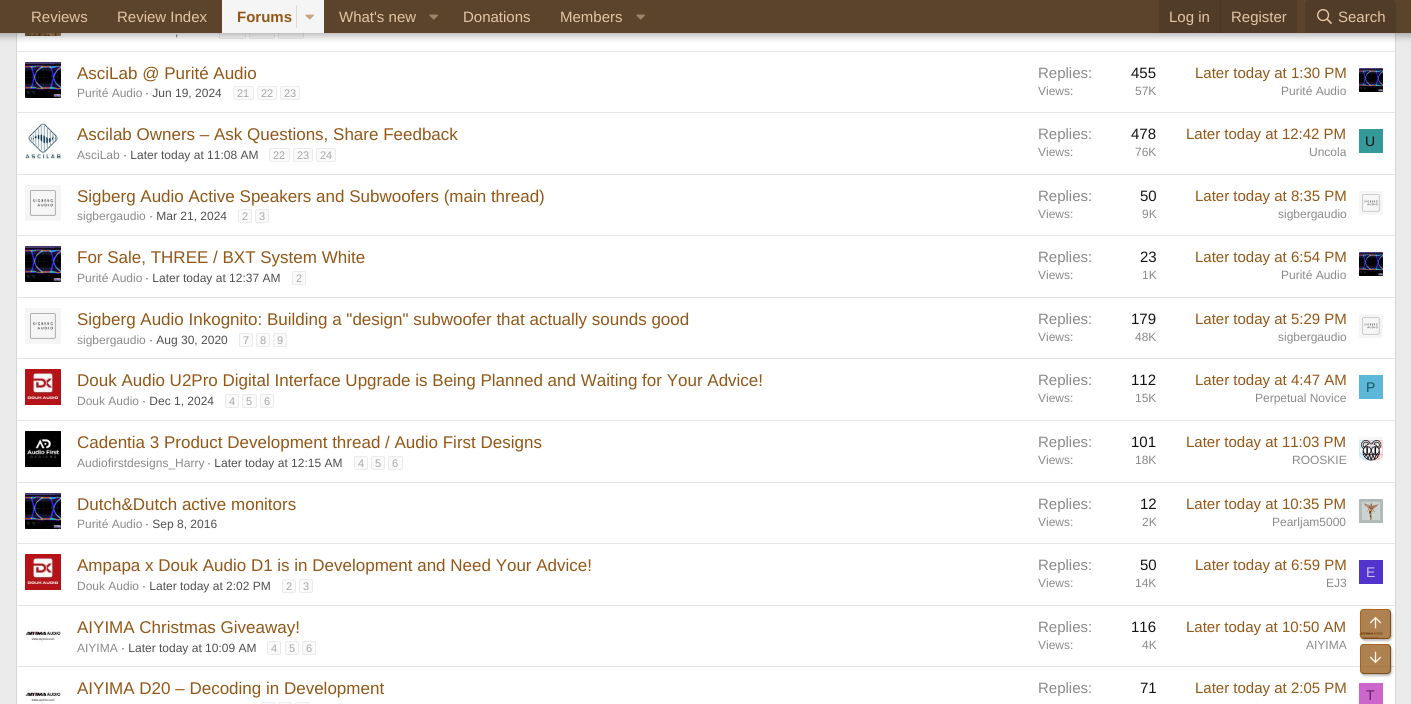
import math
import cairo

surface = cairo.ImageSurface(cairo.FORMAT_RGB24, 1411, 704)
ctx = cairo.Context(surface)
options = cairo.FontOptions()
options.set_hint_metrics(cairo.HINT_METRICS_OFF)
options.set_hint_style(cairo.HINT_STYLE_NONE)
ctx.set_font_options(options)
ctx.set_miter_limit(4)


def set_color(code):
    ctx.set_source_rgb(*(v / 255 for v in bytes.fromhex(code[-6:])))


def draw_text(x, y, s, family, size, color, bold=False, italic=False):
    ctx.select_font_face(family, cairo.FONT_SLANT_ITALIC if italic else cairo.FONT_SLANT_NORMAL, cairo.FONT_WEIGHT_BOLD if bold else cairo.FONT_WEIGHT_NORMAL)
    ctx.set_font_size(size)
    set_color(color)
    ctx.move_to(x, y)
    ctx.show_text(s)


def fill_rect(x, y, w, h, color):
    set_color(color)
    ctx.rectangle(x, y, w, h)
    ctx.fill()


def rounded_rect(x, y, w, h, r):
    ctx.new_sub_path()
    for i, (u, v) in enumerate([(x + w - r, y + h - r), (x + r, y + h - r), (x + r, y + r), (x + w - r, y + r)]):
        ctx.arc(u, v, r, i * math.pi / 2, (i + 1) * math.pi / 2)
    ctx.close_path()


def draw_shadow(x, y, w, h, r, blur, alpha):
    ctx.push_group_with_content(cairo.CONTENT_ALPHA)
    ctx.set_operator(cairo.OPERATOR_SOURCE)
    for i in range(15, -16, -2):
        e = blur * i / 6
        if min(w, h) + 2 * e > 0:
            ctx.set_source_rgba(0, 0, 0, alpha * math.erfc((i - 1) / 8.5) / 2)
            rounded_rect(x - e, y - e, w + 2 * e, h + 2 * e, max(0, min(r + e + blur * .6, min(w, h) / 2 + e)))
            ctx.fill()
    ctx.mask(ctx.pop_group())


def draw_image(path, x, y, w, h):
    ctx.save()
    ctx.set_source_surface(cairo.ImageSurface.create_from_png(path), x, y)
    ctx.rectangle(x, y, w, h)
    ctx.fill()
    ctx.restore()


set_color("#ebebeb")
ctx.paint()
fill_rect(17, 33, 1378, 671, "#ffffff")
ctx.new_path()
ctx.move_to(1394.5, -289.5)
ctx.line_to(1395.5, -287)
ctx.line_to(1395.5, 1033)
ctx.line_to(1394.5, 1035.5)
set_color("#d6d6d6")
ctx.set_line_width(1)
ctx.stroke()
ctx.new_path()
ctx.move_to(17.5, 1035.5)
ctx.line_to(16.5, 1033)
ctx.line_to(16.5, -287)
ctx.line_to(17.5, -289.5)
ctx.stroke()
draw_image("assets/img4.png", 25, 33, 36, 3)
set_color("#fafafa")
rounded_rect(219.5, 25.5, 26, 13, 1.5)
ctx.fill_preserve()
set_color("#ebebeb")
ctx.stroke()
set_color("#fafafa")
rounded_rect(249.5, 25.5, 25, 13, 1.5)
ctx.fill_preserve()
set_color("#ebebeb")
ctx.stroke()
set_color("#fafafa")
rounded_rect(278.5, 25.5, 25, 13, 1.5)
ctx.fill_preserve()
set_color("#ebebeb")
ctx.stroke()
set_color("#000000")
draw_shadow(-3, -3, 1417, 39, 0, 4, 0.3)
fill_rect(0, 0, 1411, 33, "#5c432b")
draw_text(31, 22, "Reviews", "Liberation Sans", 15, "#e4c6a5")
draw_text(117, 22, "Review Index", "Liberation Sans", 15, "#e4c6a5")
fill_rect(222, 0, 102, 33, "#f5f5f5")
draw_text(237, 22, "Forums", "Liberation Sans", 15, "#935717", bold=True)
fill_rect(296, 5, 1, 23, "#e4d9ce")
draw_image("assets/img1.png", 305, 14, 9, 6)
draw_text(339, 22, "What's new", "Liberation Sans", 15, "#e4c6a5")
draw_image("assets/img2.png", 429, 14, 9, 6)
draw_text(463, 22, "Donations", "Liberation Sans", 15, "#e4c6a5")
draw_text(560, 22, "Members", "Liberation Sans", 15, "#e4c6a5")
draw_image("assets/img2.png", 636, 14, 9, 6)
fill_rect(1159, 0, 138, 33, "#513c28")
draw_text(1169, 22, "Log in", "Liberation Sans", 15, "#e4c6a5")
fill_rect(1220, 0, 1, 33, "#483625")
draw_text(1231, 22, "Register", "Liberation Sans", 15, "#e4c6a5")
set_color("#513c28")
ctx.new_path()
ctx.move_to(1309, 0)
ctx.line_to(1392, 0)
ctx.curve_to(1394, 0, 1396, 2, 1396, 4)
ctx.line_to(1396, 33)
ctx.line_to(1305, 33)
ctx.line_to(1305, 4)
ctx.curve_to(1305, 2, 1307, 0, 1309, 0)
ctx.close_path()
ctx.fill()
draw_image("assets/img3.png", 1317, 9, 15, 15)
draw_text(1338, 22, "Search", "Liberation Sans", 15, "#e4c6a5")
draw_text(175, 36, ",", "Liberation Sans", 12, "#4f4f4f")
fill_rect(17, 51, 1378, 1, "#e5e5e5")
draw_image("assets/img5.png", 25, 62, 36, 36)
draw_text(77, 79, "AsciLab @ Purité Audio", "Liberation Sans", 17, "#935717")
draw_text(77, 97, "Purité Audio", "Liberation Sans", 12, "#8a8a8a")
draw_text(145, 97, "· Jun 19, 2024", "Liberation Sans", 12, "#4f4f4f")
set_color("#fafafa")
rounded_rect(233.5, 86.5, 20, 13, 1.5)
ctx.fill_preserve()
set_color("#ebebeb")
ctx.stroke()
draw_text(237, 97, "21", "Liberation Sans", 11, "#a7a7a7")
set_color("#fafafa")
rounded_rect(257.5, 86.5, 19, 13, 1.5)
ctx.fill_preserve()
set_color("#ebebeb")
ctx.stroke()
draw_text(261, 97, "22", "Liberation Sans", 11, "#a7a7a7")
set_color("#fafafa")
rounded_rect(280.5, 86.5, 19, 13, 1.5)
ctx.fill_preserve()
set_color("#ebebeb")
ctx.stroke()
draw_text(284, 97, "23", "Liberation Sans", 11, "#a7a7a7")
draw_text(1038, 78, "Replies:", "Liberation Sans", 15, "#8a8a8a")
draw_text(1131, 78, "455", "Liberation Sans", 15, "#141414")
draw_text(1038, 95, "Views:", "Liberation Sans", 12, "#8a8a8a")
draw_text(1135, 95, "57K", "Liberation Sans", 12, "#8a8a8a")
draw_text(1195, 78, "Later today at 1:30 PM", "Liberation Sans", 15, "#935717")
draw_text(1281, 95, "Purité Audio", "Liberation Sans", 12, "#8a8a8a")
draw_image("assets/img6.png", 1359, 68, 24, 24)
fill_rect(17, 112, 1378, 1, "#e5e5e5")
draw_image("assets/img7.png", 25, 123, 36, 36)
draw_text(77, 140, "Ascilab Owners – Ask Questions, Share Feedback", "Liberation Sans", 17, "#935717")
draw_text(77, 159, "AsciLab", "Liberation Sans", 12, "#8a8a8a")
draw_text(123, 159, "· Later today at 11:08 AM", "Liberation Sans", 12, "#4f4f4f")
set_color("#fafafa")
rounded_rect(269.5, 148.5, 20, 13, 1.5)
ctx.fill_preserve()
set_color("#ebebeb")
ctx.stroke()
draw_text(273, 159, "22", "Liberation Sans", 11, "#a7a7a7")
set_color("#fafafa")
rounded_rect(293.5, 148.5, 19, 13, 1.5)
ctx.fill_preserve()
set_color("#ebebeb")
ctx.stroke()
draw_text(297, 159, "23", "Liberation Sans", 11, "#a7a7a7")
set_color("#fafafa")
rounded_rect(316.5, 148.5, 19, 13, 1.5)
ctx.fill_preserve()
set_color("#ebebeb")
ctx.stroke()
draw_text(320, 159, "24", "Liberation Sans", 11, "#a7a7a7")
draw_text(1038, 139, "Replies:", "Liberation Sans", 15, "#8a8a8a")
draw_text(1131, 139, "478", "Liberation Sans", 15, "#141414")
draw_text(1038, 156, "Views:", "Liberation Sans", 12, "#8a8a8a")
draw_text(1135, 156, "76K", "Liberation Sans", 12, "#8a8a8a")
draw_text(1186, 139, "Later today at 12:42 PM", "Liberation Sans", 15, "#935717")
draw_text(1309, 156, "Uncola", "Liberation Sans", 12, "#8a8a8a")
fill_rect(1359, 129, 24, 24, "#339999")
draw_text(1365, 146, "U", "Liberation Sans", 14, "#061313")
fill_rect(17, 174, 1378, 1, "#e5e5e5")
draw_image("assets/img8.png", 25, 185, 36, 36)
draw_text(77, 202, "Sigberg Audio Active Speakers and Subwoofers (main thread)", "Liberation Sans", 17, "#935717")
draw_text(77, 220, "sigbergaudio", "Liberation Sans", 12, "#8a8a8a")
draw_text(149, 220, "· Mar 21, 2024", "Liberation Sans", 12, "#4f4f4f")
set_color("#fafafa")
rounded_rect(238.5, 209.5, 13, 13, 1.5)
ctx.fill_preserve()
set_color("#ebebeb")
ctx.stroke()
draw_text(242, 220, "2", "Liberation Sans", 11, "#a7a7a7")
set_color("#fafafa")
rounded_rect(255.5, 209.5, 13, 13, 1.5)
ctx.fill_preserve()
set_color("#ebebeb")
ctx.stroke()
draw_text(259, 220, "3", "Liberation Sans", 11, "#a7a7a7")
draw_text(1038, 201, "Replies:", "Liberation Sans", 15, "#8a8a8a")
draw_text(1140, 201, "50", "Liberation Sans", 15, "#141414")
draw_text(1038, 218, "Views:", "Liberation Sans", 12, "#8a8a8a")
draw_text(1142, 218, "9K", "Liberation Sans", 12, "#8a8a8a")
draw_text(1195, 201, "Later today at 8:35 PM", "Liberation Sans", 15, "#935717")
draw_text(1278, 218, "sigbergaudio", "Liberation Sans", 12, "#8a8a8a")
draw_image("assets/img9.png", 1359, 191, 24, 24)
fill_rect(17, 235, 1378, 1, "#e5e5e5")
draw_image("assets/img5.png", 25, 246, 36, 36)
draw_text(77, 263, "For Sale, THREE / BXT System White", "Liberation Sans", 17, "#935717")
draw_text(77, 282, "Purité Audio", "Liberation Sans", 12, "#8a8a8a")
draw_text(145, 282, "· Later today at 12:37 AM", "Liberation Sans", 12, "#4f4f4f")
set_color("#fafafa")
rounded_rect(292.5, 271.5, 13, 13, 1.5)
ctx.fill_preserve()
set_color("#ebebeb")
ctx.stroke()
draw_text(296, 282, "2", "Liberation Sans", 11, "#a7a7a7")
draw_text(1038, 262, "Replies:", "Liberation Sans", 15, "#8a8a8a")
draw_text(1140, 262, "23", "Liberation Sans", 15, "#141414")
draw_text(1038, 279, "Views:", "Liberation Sans", 12, "#8a8a8a")
draw_text(1142, 279, "1K", "Liberation Sans", 12, "#8a8a8a")
draw_text(1195, 262, "Later today at 6:54 PM", "Liberation Sans", 15, "#935717")
draw_text(1281, 279, "Purité Audio", "Liberation Sans", 12, "#8a8a8a")
draw_image("assets/img6.png", 1359, 252, 24, 24)
fill_rect(17, 297, 1378, 1, "#e5e5e5")
draw_image("assets/img8.png", 25, 308, 36, 36)
draw_text(77, 325, "Sigberg Audio Inkognito: Building a \"design\" subwoofer that actually sounds good", "Liberation Sans", 17, "#935717")
draw_text(77, 344, "sigbergaudio", "Liberation Sans", 12, "#8a8a8a")
draw_text(149, 344, "· Aug 30, 2020", "Liberation Sans", 12, "#4f4f4f")
set_color("#fafafa")
rounded_rect(239.5, 333.5, 13, 13, 1.5)
ctx.fill_preserve()
set_color("#ebebeb")
ctx.stroke()
draw_text(243, 344, "7", "Liberation Sans", 11, "#a7a7a7")
set_color("#fafafa")
rounded_rect(256.5, 333.5, 13, 13, 1.5)
ctx.fill_preserve()
set_color("#ebebeb")
ctx.stroke()
draw_text(260, 344, "8", "Liberation Sans", 11, "#a7a7a7")
set_color("#fafafa")
rounded_rect(273.5, 333.5, 13, 13, 1.5)
ctx.fill_preserve()
set_color("#ebebeb")
ctx.stroke()
draw_text(277, 344, "9", "Liberation Sans", 11, "#a7a7a7")
draw_text(1038, 324, "Replies:", "Liberation Sans", 15, "#8a8a8a")
draw_text(1131, 324, "179", "Liberation Sans", 15, "#141414")
draw_text(1038, 341, "Views:", "Liberation Sans", 12, "#8a8a8a")
draw_text(1135, 341, "48K", "Liberation Sans", 12, "#8a8a8a")
draw_text(1195, 324, "Later today at 5:29 PM", "Liberation Sans", 15, "#935717")
draw_text(1278, 341, "sigbergaudio", "Liberation Sans", 12, "#8a8a8a")
draw_image("assets/img9.png", 1359, 314, 24, 24)
fill_rect(17, 358, 1378, 1, "#e5e5e5")
draw_image("assets/img10.png", 25, 369, 36, 36)
draw_text(77, 386, "Douk Audio U2Pro Digital Interface Upgrade is Being Planned and Waiting for Your Advice!", "Liberation Sans", 17, "#935717")
draw_text(77, 405, "Douk Audio", "Liberation Sans", 12, "#8a8a8a")
draw_text(142, 405, "· Dec 1, 2024", "Liberation Sans", 12, "#4f4f4f")
set_color("#fafafa")
rounded_rect(225.5, 394.5, 13, 13, 1.5)
ctx.fill_preserve()
set_color("#ebebeb")
ctx.stroke()
draw_text(229, 405, "4", "Liberation Sans", 11, "#a7a7a7")
set_color("#fafafa")
rounded_rect(242.5, 394.5, 14, 13, 1.5)
ctx.fill_preserve()
set_color("#ebebeb")
ctx.stroke()
draw_text(246, 405, "5", "Liberation Sans", 11, "#a7a7a7")
set_color("#fafafa")
rounded_rect(260.5, 394.5, 13, 13, 1.5)
ctx.fill_preserve()
set_color("#ebebeb")
ctx.stroke()
draw_text(264, 405, "6", "Liberation Sans", 11, "#a7a7a7")
draw_text(1038, 385, "Replies:", "Liberation Sans", 15, "#8a8a8a")
draw_text(1131, 385, "112", "Liberation Sans", 15, "#141414")
draw_text(1038, 402, "Views:", "Liberation Sans", 12, "#8a8a8a")
draw_text(1135, 402, "15K", "Liberation Sans", 12, "#8a8a8a")
draw_text(1195, 385, "Later today at 4:47 AM", "Liberation Sans", 15, "#935717")
draw_text(1255, 402, "Perpetual Novice", "Liberation Sans", 12, "#8a8a8a")
fill_rect(1359, 375, 24, 24, "#5cb8d6")
draw_text(1366, 392, "P", "Liberation Sans", 14, "#1a5366")
fill_rect(17, 420, 1378, 1, "#e5e5e5")
draw_image("assets/img11.png", 25, 431, 36, 36)
draw_text(77, 448, "Cadentia 3 Product Development thread / Audio First Designs", "Liberation Sans", 17, "#935717")
draw_text(77, 467, "Audiofirstdesigns_Harry", "Liberation Sans", 12, "#8a8a8a")
draw_text(207, 467, "· Later today at 12:15 AM", "Liberation Sans", 12, "#4f4f4f")
set_color("#fafafa")
rounded_rect(354.5, 456.5, 13, 13, 1.5)
ctx.fill_preserve()
set_color("#ebebeb")
ctx.stroke()
draw_text(358, 467, "4", "Liberation Sans", 11, "#a7a7a7")
set_color("#fafafa")
rounded_rect(371.5, 456.5, 13, 13, 1.5)
ctx.fill_preserve()
set_color("#ebebeb")
ctx.stroke()
draw_text(375, 467, "5", "Liberation Sans", 11, "#a7a7a7")
set_color("#fafafa")
rounded_rect(388.5, 456.5, 14, 13, 1.5)
ctx.fill_preserve()
set_color("#ebebeb")
ctx.stroke()
draw_text(392, 467, "6", "Liberation Sans", 11, "#a7a7a7")
draw_text(1038, 447, "Replies:", "Liberation Sans", 15, "#8a8a8a")
draw_text(1131, 447, "101", "Liberation Sans", 15, "#141414")
draw_text(1038, 464, "Views:", "Liberation Sans", 12, "#8a8a8a")
draw_text(1135, 464, "18K", "Liberation Sans", 12, "#8a8a8a")
draw_text(1186, 447, "Later today at 11:03 PM", "Liberation Sans", 15, "#935717")
draw_text(1292, 464, "ROOSKIE", "Liberation Sans", 12, "#8a8a8a")
draw_image("assets/img12.png", 1359, 437, 24, 24)
fill_rect(17, 482, 1378, 1, "#e5e5e5")
draw_image("assets/img5.png", 25, 493, 36, 36)
draw_text(77, 510, "Dutch&Dutch active monitors", "Liberation Sans", 17, "#935717")
draw_text(77, 528, "Purité Audio", "Liberation Sans", 12, "#8a8a8a")
draw_text(145, 528, "· Sep 8, 2016", "Liberation Sans", 12, "#4f4f4f")
draw_text(1038, 509, "Replies:", "Liberation Sans", 15, "#8a8a8a")
draw_text(1140, 509, "12", "Liberation Sans", 15, "#141414")
draw_text(1038, 526, "Views:", "Liberation Sans", 12, "#8a8a8a")
draw_text(1142, 526, "2K", "Liberation Sans", 12, "#8a8a8a")
draw_text(1186, 509, "Later today at 10:35 PM", "Liberation Sans", 15, "#935717")
draw_text(1272, 526, "Pearljam5000", "Liberation Sans", 12, "#8a8a8a")
draw_image("assets/img13.png", 1359, 499, 24, 24)
fill_rect(17, 543, 1378, 1, "#e5e5e5")
draw_image("assets/img10.png", 25, 554, 36, 36)
draw_text(77, 571, "Ampapa x Douk Audio D1 is in Development and Need Your Advice!", "Liberation Sans", 17, "#935717")
draw_text(77, 590, "Douk Audio", "Liberation Sans", 12, "#8a8a8a")
draw_text(142, 590, "· Later today at 2:02 PM", "Liberation Sans", 12, "#4f4f4f")
set_color("#fafafa")
rounded_rect(282.5, 579.5, 13, 13, 1.5)
ctx.fill_preserve()
set_color("#ebebeb")
ctx.stroke()
draw_text(286, 590, "2", "Liberation Sans", 11, "#a7a7a7")
set_color("#fafafa")
rounded_rect(299.5, 579.5, 13, 13, 1.5)
ctx.fill_preserve()
set_color("#ebebeb")
ctx.stroke()
draw_text(303, 590, "3", "Liberation Sans", 11, "#a7a7a7")
draw_text(1038, 570, "Replies:", "Liberation Sans", 15, "#8a8a8a")
draw_text(1140, 570, "50", "Liberation Sans", 15, "#141414")
draw_text(1038, 587, "Views:", "Liberation Sans", 12, "#8a8a8a")
draw_text(1135, 587, "14K", "Liberation Sans", 12, "#8a8a8a")
draw_text(1195, 570, "Later today at 6:59 PM", "Liberation Sans", 15, "#935717")
draw_text(1326, 587, "EJ3", "Liberation Sans", 12, "#8a8a8a")
fill_rect(1359, 560, 24, 24, "#5233cc")
draw_text(1366, 577, "E", "Liberation Sans", 14, "#cbc2f0")
fill_rect(17, 605, 1378, 1, "#e5e5e5")
draw_image("assets/img14.png", 25, 628, 36, 15)
draw_text(77, 633, "AIYIMA Christmas Giveaway!", "Liberation Sans", 17, "#935717")
draw_text(77, 652, "AIYIMA", "Liberation Sans", 12, "#8a8a8a")
draw_text(121, 652, "· Later today at 10:09 AM", "Liberation Sans", 12, "#4f4f4f")
set_color("#fafafa")
rounded_rect(267.5, 641.5, 13, 13, 1.5)
ctx.fill_preserve()
set_color("#ebebeb")
ctx.stroke()
draw_text(271, 652, "4", "Liberation Sans", 11, "#a7a7a7")
set_color("#fafafa")
rounded_rect(285.5, 641.5, 13, 13, 1.5)
ctx.fill_preserve()
set_color("#ebebeb")
ctx.stroke()
draw_text(289, 652, "5", "Liberation Sans", 11, "#a7a7a7")
set_color("#fafafa")
rounded_rect(302.5, 641.5, 13, 13, 1.5)
ctx.fill_preserve()
set_color("#ebebeb")
ctx.stroke()
draw_text(306, 652, "6", "Liberation Sans", 11, "#a7a7a7")
draw_text(1038, 632, "Replies:", "Liberation Sans", 15, "#8a8a8a")
draw_text(1131, 632, "116", "Liberation Sans", 15, "#141414")
draw_text(1038, 649, "Views:", "Liberation Sans", 12, "#8a8a8a")
draw_text(1142, 649, "4K", "Liberation Sans", 12, "#8a8a8a")
draw_text(1186, 632, "Later today at 10:50 AM", "Liberation Sans", 15, "#935717")
draw_text(1306, 649, "AIYIMA", "Liberation Sans", 12, "#8a8a8a")
draw_image("assets/img15.png", 1359, 630, 24, 9)
fill_rect(17, 666, 1378, 1, "#e5e5e5")
draw_image("assets/img14.png", 25, 689, 36, 15)
draw_text(77, 694, "AIYIMA D20 – Decoding in Development", "Liberation Sans", 17, "#935717")
set_color("#fafafa")
rounded_rect(261.5, 702.5, 13, 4, 1.5)
ctx.fill_preserve()
set_color("#ebebeb")
ctx.stroke()
set_color("#fafafa")
rounded_rect(278.5, 702.5, 13, 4, 1.5)
ctx.fill_preserve()
set_color("#ebebeb")
ctx.stroke()
set_color("#fafafa")
rounded_rect(295.5, 702.5, 13, 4, 1.5)
ctx.fill_preserve()
set_color("#ebebeb")
ctx.stroke()
draw_text(1038, 693, "Replies:", "Liberation Sans", 15, "#8a8a8a")
draw_text(1140, 693, "71", "Liberation Sans", 15, "#141414")
draw_text(1195, 693, "Later today at 2:05 PM", "Liberation Sans", 15, "#935717")
fill_rect(1359, 683, 24, 21, "#cc66cc")
draw_text(1366, 700, "T", "Liberation Sans", 14, "#602060")
ctx.save()
ctx.set_fill_rule(cairo.FILL_RULE_EVEN_ODD)
ctx.new_path()
ctx.move_to(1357, 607)
ctx.line_to(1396, 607)
ctx.line_to(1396, 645)
ctx.line_to(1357, 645)
ctx.close_path()
ctx.move_to(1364, 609)
ctx.line_to(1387, 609)
ctx.curve_to(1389, 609, 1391, 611, 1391, 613)
ctx.line_to(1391, 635)
ctx.curve_to(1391, 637, 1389, 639, 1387, 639)
ctx.line_to(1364, 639)
ctx.curve_to(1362, 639, 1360, 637, 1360, 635)
ctx.line_to(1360, 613)
ctx.curve_to(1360, 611, 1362, 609, 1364, 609)
ctx.close_path()
ctx.clip()
set_color("#000000")
draw_shadow(1361, 611, 31, 30, 4, 1, 0.25)
ctx.restore()
ctx.set_source_rgba(0.576, 0.341, 0.09, 0.75)
rounded_rect(1360, 609, 31, 30, 4)
ctx.fill()
ctx.new_path()
ctx.move_to(1389.5, 610.5)
ctx.curve_to(1391, 612, 1390.5, 615, 1390.5, 616.5)
ctx.line_to(1390.5, 624)
ctx.curve_to(1390.5, 641, 1392.5, 638.5, 1375.5, 638.5)
ctx.line_to(1368, 638.5)
ctx.curve_to(1366, 638.5, 1363, 639, 1361.5, 637.5)
set_color("#7d4a14")
ctx.stroke()
ctx.new_path()
ctx.move_to(1361.5, 637.5)
ctx.curve_to(1360, 636, 1360.5, 633, 1360.5, 631.5)
ctx.line_to(1360.5, 624)
ctx.curve_to(1360.5, 607, 1358.5, 609.5, 1375.5, 609.5)
ctx.line_to(1383, 609.5)
ctx.curve_to(1385, 609.5, 1388, 609, 1389.5, 610.5)
set_color("#a9641a")
ctx.stroke()
draw_image("assets/img16.png", 1369, 616, 13, 13)
ctx.save()
ctx.set_fill_rule(cairo.FILL_RULE_EVEN_ODD)
ctx.new_path()
ctx.move_to(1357, 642)
ctx.line_to(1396, 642)
ctx.line_to(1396, 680)
ctx.line_to(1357, 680)
ctx.close_path()
ctx.move_to(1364, 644)
ctx.line_to(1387, 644)
ctx.curve_to(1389, 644, 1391, 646, 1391, 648)
ctx.line_to(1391, 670)
ctx.curve_to(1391, 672, 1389, 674, 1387, 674)
ctx.line_to(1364, 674)
ctx.curve_to(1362, 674, 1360, 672, 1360, 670)
ctx.line_to(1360, 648)
ctx.curve_to(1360, 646, 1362, 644, 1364, 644)
ctx.close_path()
ctx.clip()
set_color("#000000")
draw_shadow(1361, 646, 31, 30, 4, 1, 0.25)
ctx.restore()
ctx.set_source_rgba(0.576, 0.341, 0.09, 0.75)
rounded_rect(1360, 644, 31, 30, 4)
ctx.fill()
ctx.new_path()
ctx.move_to(1389.5, 645.5)
ctx.curve_to(1391, 647, 1390.5, 650, 1390.5, 651.5)
ctx.line_to(1390.5, 659)
ctx.curve_to(1390.5, 676, 1392.5, 673.5, 1375.5, 673.5)
ctx.line_to(1368, 673.5)
ctx.curve_to(1366, 673.5, 1363, 674, 1361.5, 672.5)
set_color("#7d4a14")
ctx.stroke()
ctx.new_path()
ctx.move_to(1361.5, 672.5)
ctx.curve_to(1360, 671, 1360.5, 668, 1360.5, 666.5)
ctx.line_to(1360.5, 659)
ctx.curve_to(1360.5, 642, 1358.5, 644.5, 1375.5, 644.5)
ctx.line_to(1383, 644.5)
ctx.curve_to(1385, 644.5, 1388, 644, 1389.5, 645.5)
set_color("#a9641a")
ctx.stroke()
draw_image("assets/img17.png", 1369, 651, 13, 13)
surface.write_to_png("output.png")
